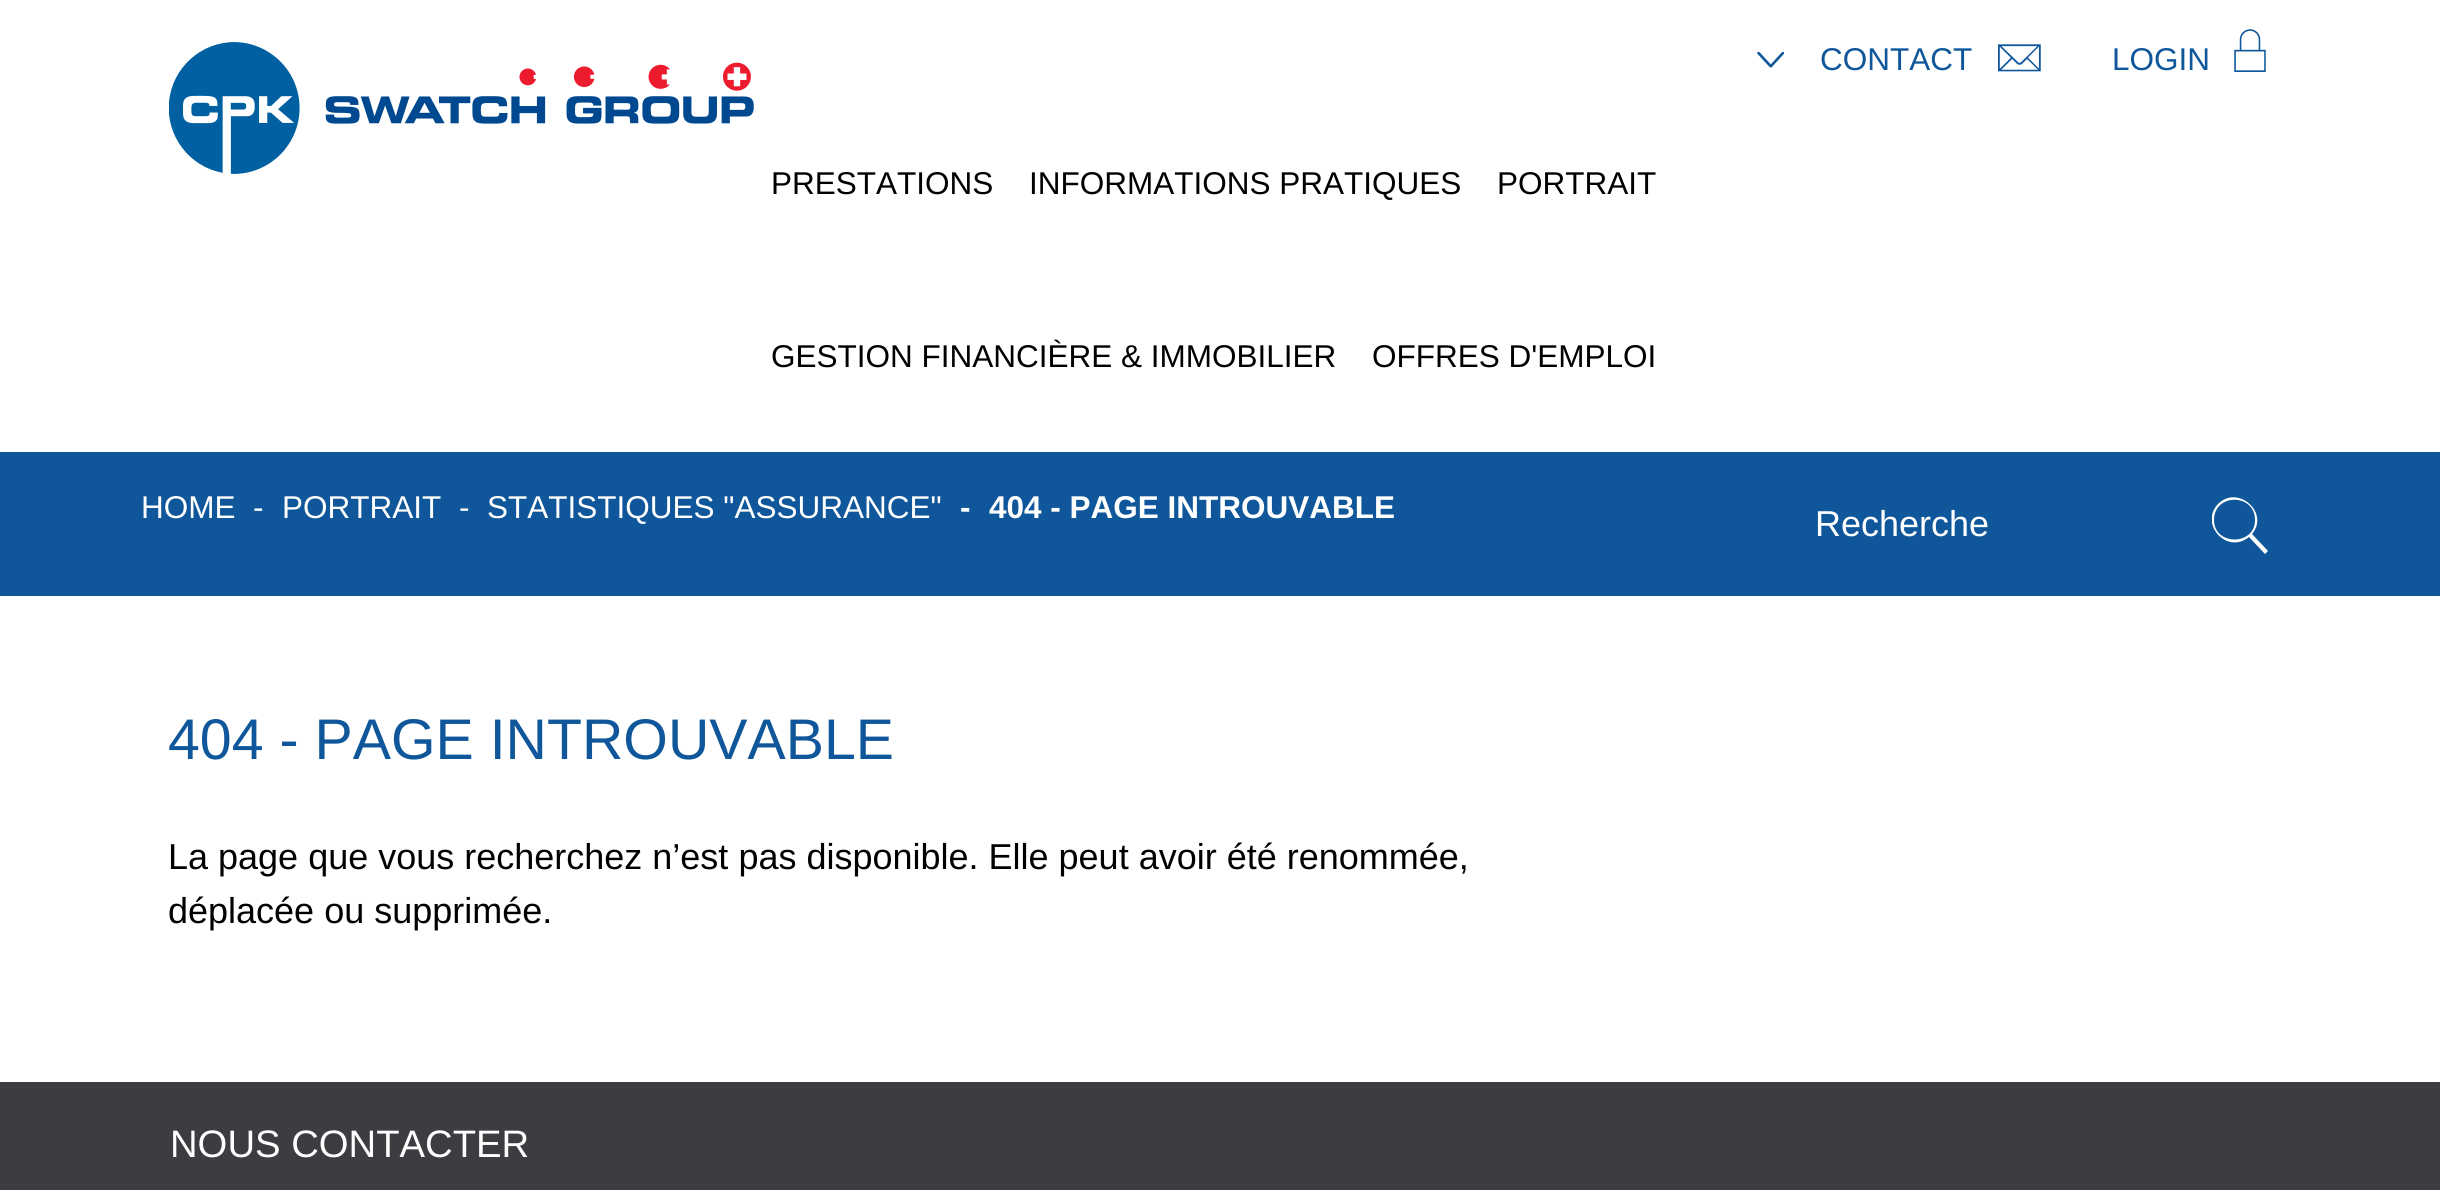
import math
import cairo

surface = cairo.ImageSurface(cairo.FORMAT_RGB24, 2440, 1190)
ctx = cairo.Context(surface)
options = cairo.FontOptions()
options.set_hint_metrics(cairo.HINT_METRICS_OFF)
options.set_hint_style(cairo.HINT_STYLE_NONE)
ctx.set_font_options(options)
ctx.set_miter_limit(4)


def set_color(code):
    ctx.set_source_rgb(*(v / 255 for v in bytes.fromhex(code[-6:])))


def draw_text(x, y, s, family, size, color, bold=False, italic=False):
    ctx.select_font_face(family, cairo.FONT_SLANT_ITALIC if italic else cairo.FONT_SLANT_NORMAL, cairo.FONT_WEIGHT_BOLD if bold else cairo.FONT_WEIGHT_NORMAL)
    ctx.set_font_size(size)
    set_color(color)
    ctx.move_to(x, y)
    ctx.show_text(s)


def fill_rect(x, y, w, h, color):
    set_color(color)
    ctx.rectangle(x, y, w, h)
    ctx.fill()


def draw_image(path, x, y, w, h):
    ctx.save()
    ctx.set_source_surface(cairo.ImageSurface.create_from_png(path), x, y)
    ctx.rectangle(x, y, w, h)
    ctx.fill()
    ctx.restore()


set_color("#ffffff")
ctx.paint()
draw_image("assets/img1.png", 169, 42, 585, 132)
draw_image("assets/img2.png", 1757, 52, 27, 16)
draw_text(1820, 70, "CONTACT", "Liberation Sans", 31.5, "#0f579a")
draw_image("assets/img3.png", 1998, 44, 43, 28)
draw_text(2112, 70, "LOGIN", "Liberation Sans", 31.5, "#0f579a")
draw_image("assets/img4.png", 2234, 29, 32, 43)
draw_text(771, 194, "PRESTATIONS", "Liberation Sans", 31.5, "#000000")
draw_text(1029, 194, "INFORMATIONS PRATIQUES", "Liberation Sans", 31.5, "#000000")
draw_text(1497, 194, "PORTRAIT", "Liberation Sans", 31.5, "#000000")
draw_text(771, 367, "GESTION FINANCIÈRE & IMMOBILIER", "Liberation Sans", 31.5, "#000000")
draw_text(1372, 367, "OFFRES D'EMPLOI", "Liberation Sans", 31.5, "#000000")
fill_rect(0, 452, 2440, 144, "#0f579a")
draw_text(141, 518, "HOME", "Liberation Sans", 31.5, "#ffffff")
draw_text(253, 518, "-", "Liberation Sans", 31.5, "#ffffff")
draw_text(282, 518, "PORTRAIT", "Liberation Sans", 31.5, "#ffffff")
draw_text(459, 518, "-", "Liberation Sans", 31.5, "#ffffff")
draw_text(487, 518, "STATISTIQUES \"ASSURANCE\"", "Liberation Sans", 31.5, "#ffffff")
draw_text(960, 518, "-", "Liberation Sans", 31.5, "#ffffff", bold=True)
draw_text(989, 518, "404 - PAGE INTROUVABLE", "Liberation Sans", 31.5, "#ffffff", bold=True)
draw_text(1815, 536, "Recherche", "Liberation Sans", 36, "#ffffff")
ctx.save()
ctx.rectangle(2212, 497, 56, 57)
ctx.clip()
ctx.new_path()
ctx.move_to(2268, 551)
ctx.line_to(2252, 534)
ctx.curve_to(2270, 513, 2238, 484, 2218, 504)
ctx.curve_to(2199, 524, 2227, 555, 2249, 537)
ctx.line_to(2265, 554)
ctx.close_path()
ctx.move_to(2214, 520)
ctx.curve_to(2214, 493, 2255, 493, 2255, 520)
ctx.curve_to(2255, 546, 2214, 546, 2214, 520)
ctx.close_path()
ctx.fill()
ctx.restore()
draw_text(168, 759, "404 - PAGE INTROUVABLE", "Liberation Sans", 57.3, "#0f579a")
draw_text(168, 869, "La page que vous recherchez n’est pas disponible. Elle peut avoir été renommée,", "Liberation Sans", 36, "#000000")
draw_text(168, 923, "déplacée ou supprimée.", "Liberation Sans", 36, "#000000")
fill_rect(0, 1082, 2440, 108, "#3c3d41")
draw_text(170, 1157, "NOUS CONTACTER", "Liberation Sans", 38.25, "#ffffff")
surface.write_to_png("output.png")
